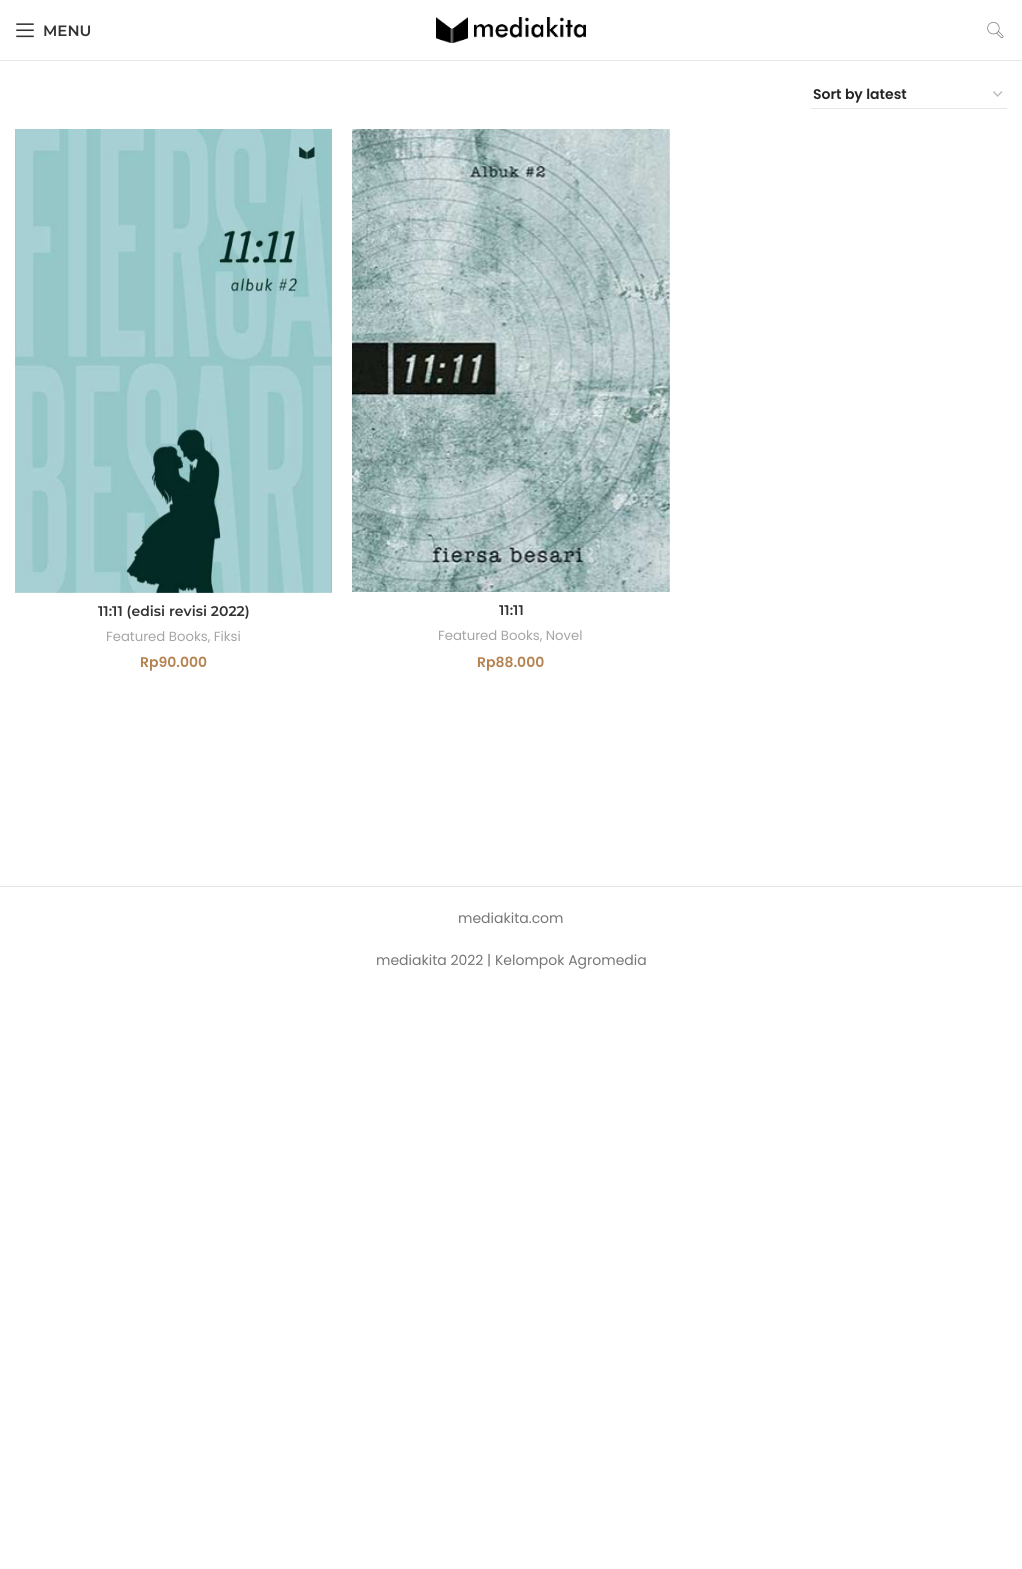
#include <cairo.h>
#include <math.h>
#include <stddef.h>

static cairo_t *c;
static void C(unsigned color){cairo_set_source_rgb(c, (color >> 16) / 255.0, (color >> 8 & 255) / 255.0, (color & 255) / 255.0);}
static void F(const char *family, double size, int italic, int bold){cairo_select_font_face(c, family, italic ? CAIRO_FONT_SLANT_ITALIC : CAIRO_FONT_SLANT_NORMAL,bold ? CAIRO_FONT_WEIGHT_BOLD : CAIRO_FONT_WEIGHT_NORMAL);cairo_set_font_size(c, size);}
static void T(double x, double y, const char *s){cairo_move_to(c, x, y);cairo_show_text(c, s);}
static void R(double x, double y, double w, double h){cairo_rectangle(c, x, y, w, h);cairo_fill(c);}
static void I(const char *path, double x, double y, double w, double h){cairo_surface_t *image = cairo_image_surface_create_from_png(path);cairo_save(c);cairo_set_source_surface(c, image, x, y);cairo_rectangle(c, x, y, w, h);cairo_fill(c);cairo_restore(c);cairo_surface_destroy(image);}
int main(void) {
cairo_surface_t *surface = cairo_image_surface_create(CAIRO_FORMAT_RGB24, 1022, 1569);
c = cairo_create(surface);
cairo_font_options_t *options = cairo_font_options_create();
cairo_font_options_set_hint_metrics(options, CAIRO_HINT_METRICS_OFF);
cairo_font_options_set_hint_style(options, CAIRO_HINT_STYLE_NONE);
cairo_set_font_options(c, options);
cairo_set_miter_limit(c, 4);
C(0xffffff);
cairo_paint(c);
C(0xe6e6e6);
R(0,60,1022,1);
I("1.png",16,23,18,15);
F("Montserrat Thin",15,0,0);
C(0x333333);
T(43,36,"MENU");
I("2.png",436,17,150,26);
I("3.png",987,22,17,17);
cairo_new_path(c);
cairo_move_to(c,993.5,91.5);
cairo_line_to(c,997.5,96);
cairo_line_to(c,1002,91.5);
C(0xbbbbbb);
cairo_set_line_width(c,1.4);
cairo_stroke(c);
C(0xe6e6e6);
R(811,108,196,1);
F("Poppins SemiBold",14,0,0);
C(0x242424);
T(813,99,"Sort by latest");
I("4.png",15,129,317,464);
F("Montserrat Thin",14,0,0);
C(0x333333);
T(98,616,"11:11 (edisi revisi 2022)");
F("Poppins",13.25,0,0);
C(0xa5a5a5);
T(106,641,"Featured Books, Fiksi");
F("Poppins SemiBold",14,0,0);
C(0xb58352);
T(140,667,"Rp90.000");
I("5.png",352,129,318,463);
F("Montserrat Thin",14,0,0);
C(0x333333);
T(499,615,"11:11");
F("Poppins",13.25,0,0);
C(0xa5a5a5);
T(438,640,"Featured Books, Novel");
F("Poppins SemiBold",14,0,0);
C(0xb58352);
T(477,667,"Rp88.000");
C(0xe4e4e4);
R(0,886,1022,1);
F("Poppins",14,0,0);
C(0x767676);
T(458,923,"mediakita.com");
T(376,965,"mediakita 2022 | Kelompok Agromedia");
cairo_surface_write_to_png(surface, "o.png");
cairo_font_options_destroy(options);
cairo_destroy(c);
cairo_surface_destroy(surface);
return 0;
}
